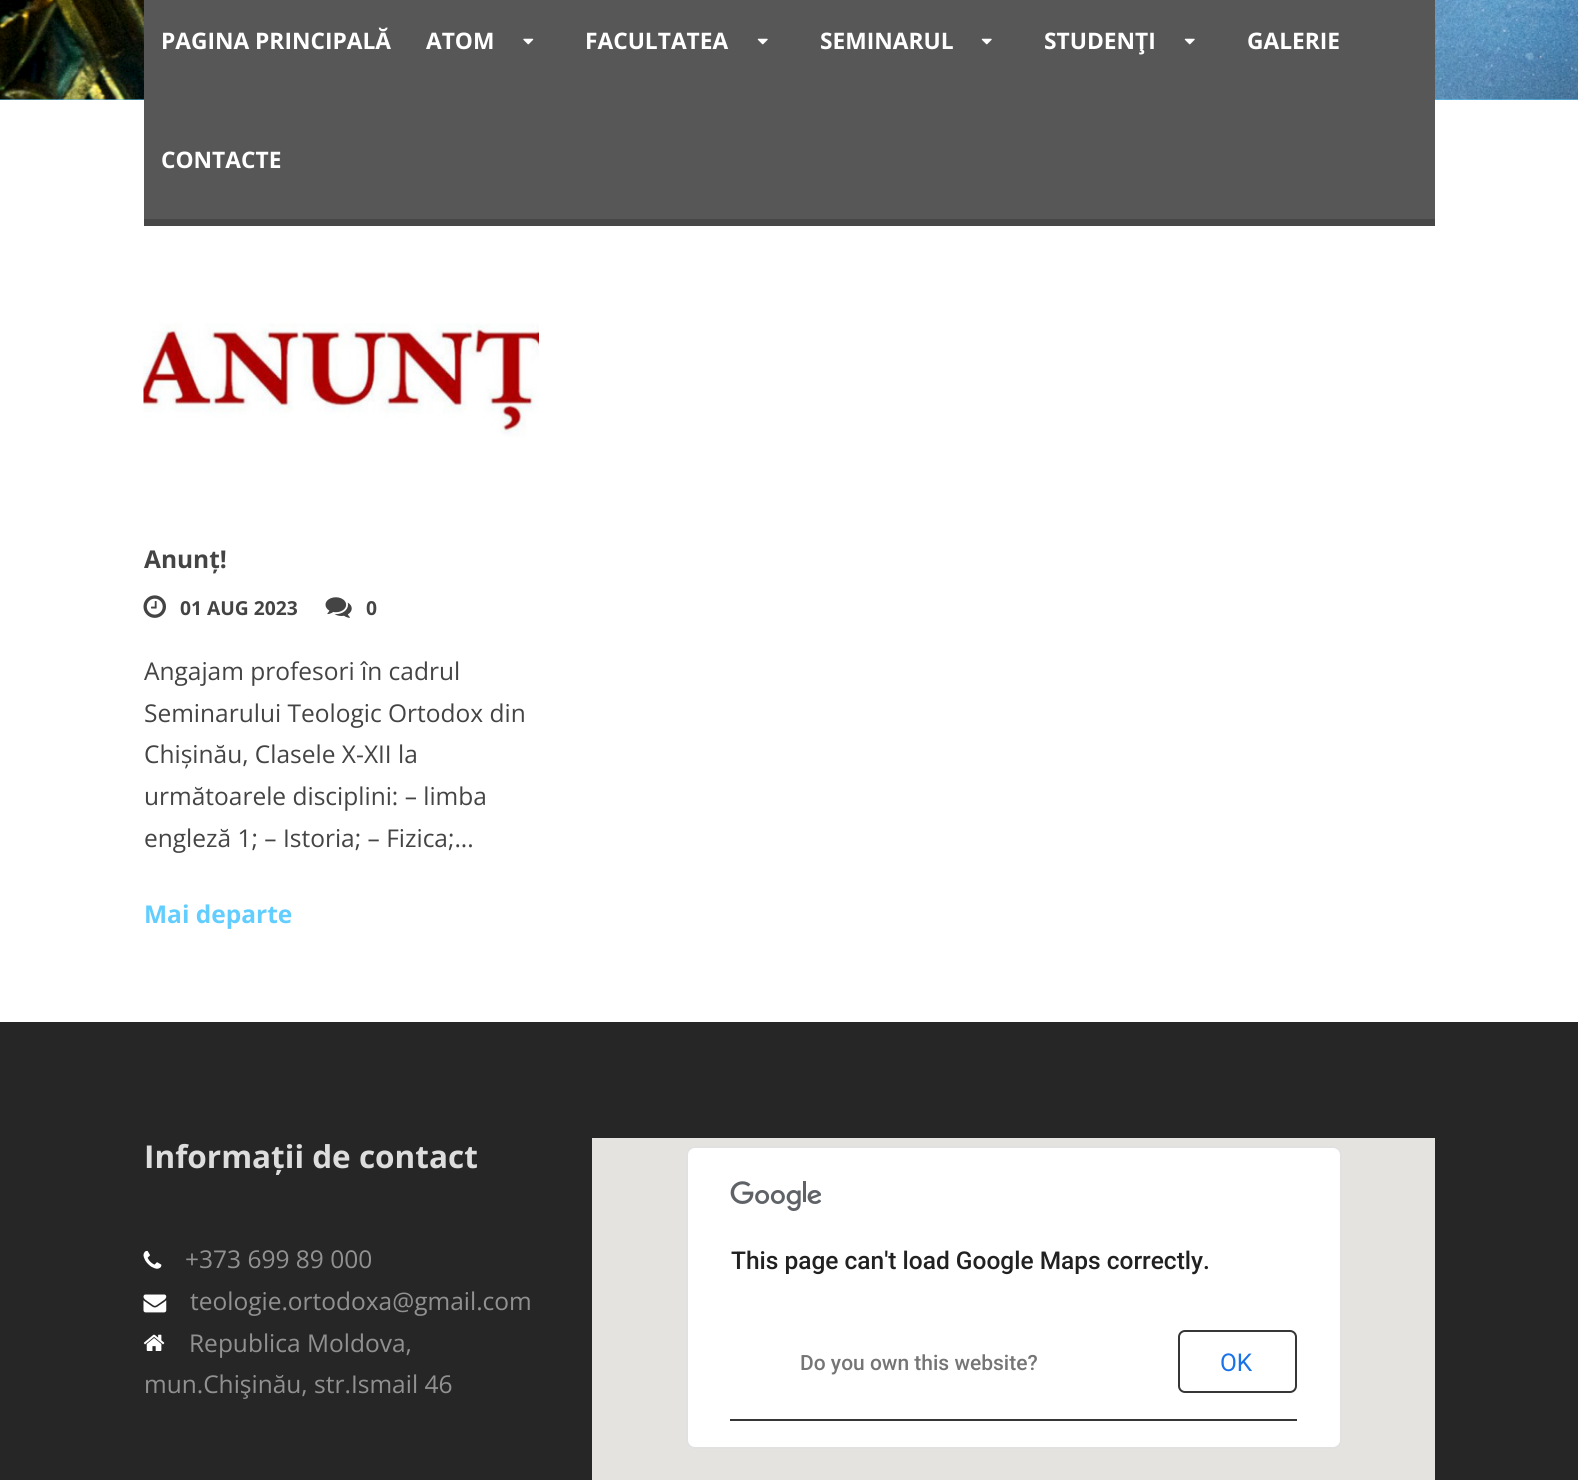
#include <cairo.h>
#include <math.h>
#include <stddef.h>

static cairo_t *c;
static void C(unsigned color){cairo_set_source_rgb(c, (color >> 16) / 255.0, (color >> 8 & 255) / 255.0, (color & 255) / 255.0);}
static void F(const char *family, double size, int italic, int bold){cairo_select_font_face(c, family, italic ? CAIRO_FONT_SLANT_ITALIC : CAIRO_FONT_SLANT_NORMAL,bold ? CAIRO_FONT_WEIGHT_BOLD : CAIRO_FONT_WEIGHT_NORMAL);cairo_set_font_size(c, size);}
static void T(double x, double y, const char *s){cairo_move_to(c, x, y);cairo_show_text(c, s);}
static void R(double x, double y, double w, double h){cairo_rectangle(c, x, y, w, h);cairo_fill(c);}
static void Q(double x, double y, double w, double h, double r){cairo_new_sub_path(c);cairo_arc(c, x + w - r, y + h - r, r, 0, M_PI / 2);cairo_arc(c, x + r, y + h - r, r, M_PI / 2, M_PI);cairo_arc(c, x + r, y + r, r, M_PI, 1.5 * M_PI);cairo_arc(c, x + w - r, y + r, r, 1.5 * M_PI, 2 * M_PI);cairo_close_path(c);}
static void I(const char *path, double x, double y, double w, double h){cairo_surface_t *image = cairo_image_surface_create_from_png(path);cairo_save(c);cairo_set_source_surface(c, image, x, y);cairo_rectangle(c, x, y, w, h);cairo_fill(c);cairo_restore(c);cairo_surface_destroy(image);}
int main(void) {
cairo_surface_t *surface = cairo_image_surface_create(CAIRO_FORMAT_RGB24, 1578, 1480);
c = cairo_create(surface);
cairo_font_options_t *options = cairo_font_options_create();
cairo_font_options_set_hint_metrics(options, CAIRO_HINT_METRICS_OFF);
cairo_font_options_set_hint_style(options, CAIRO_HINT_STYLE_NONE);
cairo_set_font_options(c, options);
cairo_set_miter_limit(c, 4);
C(0xffffff);
cairo_paint(c);
C(0x62cdff);
R(0,99,1578,1);
I("1.png",0,0,1578,100);
C(0x575757);
R(144,0,1291,219);
C(0x474747);
R(144,219,1291,7);
F("Open Sans",22.75,0,1);
C(0xffffff);
T(161,49,"PAGINA PRINCIPALĂ");
T(426,49,"ATOM");
I("2.png",523,38,11,7);
T(585,49,"FACULTATEA");
I("3.png",757,38,11,7);
T(820,49,"SEMINARUL");
I("3.png",981,38,11,7);
T(1044,49,"STUDENŢI");
I("3.png",1184,38,11,7);
T(1247,49,"GALERIE");
T(161,168,"CONTACTE");
I("4.png",143,323,396,114);
F("Open Sans",24.5,0,1);
C(0x444444);
T(144,568,"Anunț!");
I("5.png",143,595,23,23);
F("Open Sans",19.25,0,1);
T(180,615,"01 AUG 2023");
I("6.png",325,597,27,21);
T(366,615,"0");
F("Open Sans",24.5,0,0);
T(144,680,"Angajam profesori în cadrul");
T(144,722,"Seminarului Teologic Ortodox din");
T(144,763,"Chișinău, Clasele X-XII la");
T(144,805,"următoarele disciplini: – limba");
T(144,847,"engleză 1; – Istoria; – Fizica;...");
F("Open Sans",24.5,0,1);
C(0x62cdff);
T(144,923,"Mai departe");
C(0x262626);
R(0,1022,1578,458);
F("Open Sans",31.5,0,1);
C(0xdddddd);
T(144,1168,"Informații de contact");
I("7.png",143,1250,19,19);
F("Open Sans",24.5,0,0);
C(0x919191);
T(185,1268,"+373 699 89 000");
I("8.png",143,1294,24,19);
T(190,1310,"teologie.ortodoxa@gmail.com");
I("9.png",143,1334,22,17);
T(189,1352,"Republica Moldova,");
T(144,1393,"mun.Chişinău, str.Ismail 46");
C(0xe5e3df);
R(592,1138,843,342);
C(0xffffff);
Q(686,1146,656,303,9);
cairo_fill(c);
Q(687,1147,654,301,8);
cairo_set_source_rgba(c,0,0,0,0.12);
cairo_stroke(c);
I("10.png",730,1181,91,30);
F("Roboto Medium",24.5,0,0);
C(0x212121);
T(731,1269,"This page can't load Google Maps correctly.");
F("Roboto Medium",21,0,0);
C(0x757575);
T(800,1370,"Do you own this website?");
C(0x363636);
R(730,1419,567,2);
Q(1179,1331,117,61,6);
cairo_stroke(c);
F("Roboto",24.5,0,0);
C(0x1a73e8);
T(1220,1371,"OK");
cairo_surface_write_to_png(surface, "o.png");
cairo_font_options_destroy(options);
cairo_destroy(c);
cairo_surface_destroy(surface);
return 0;
}
